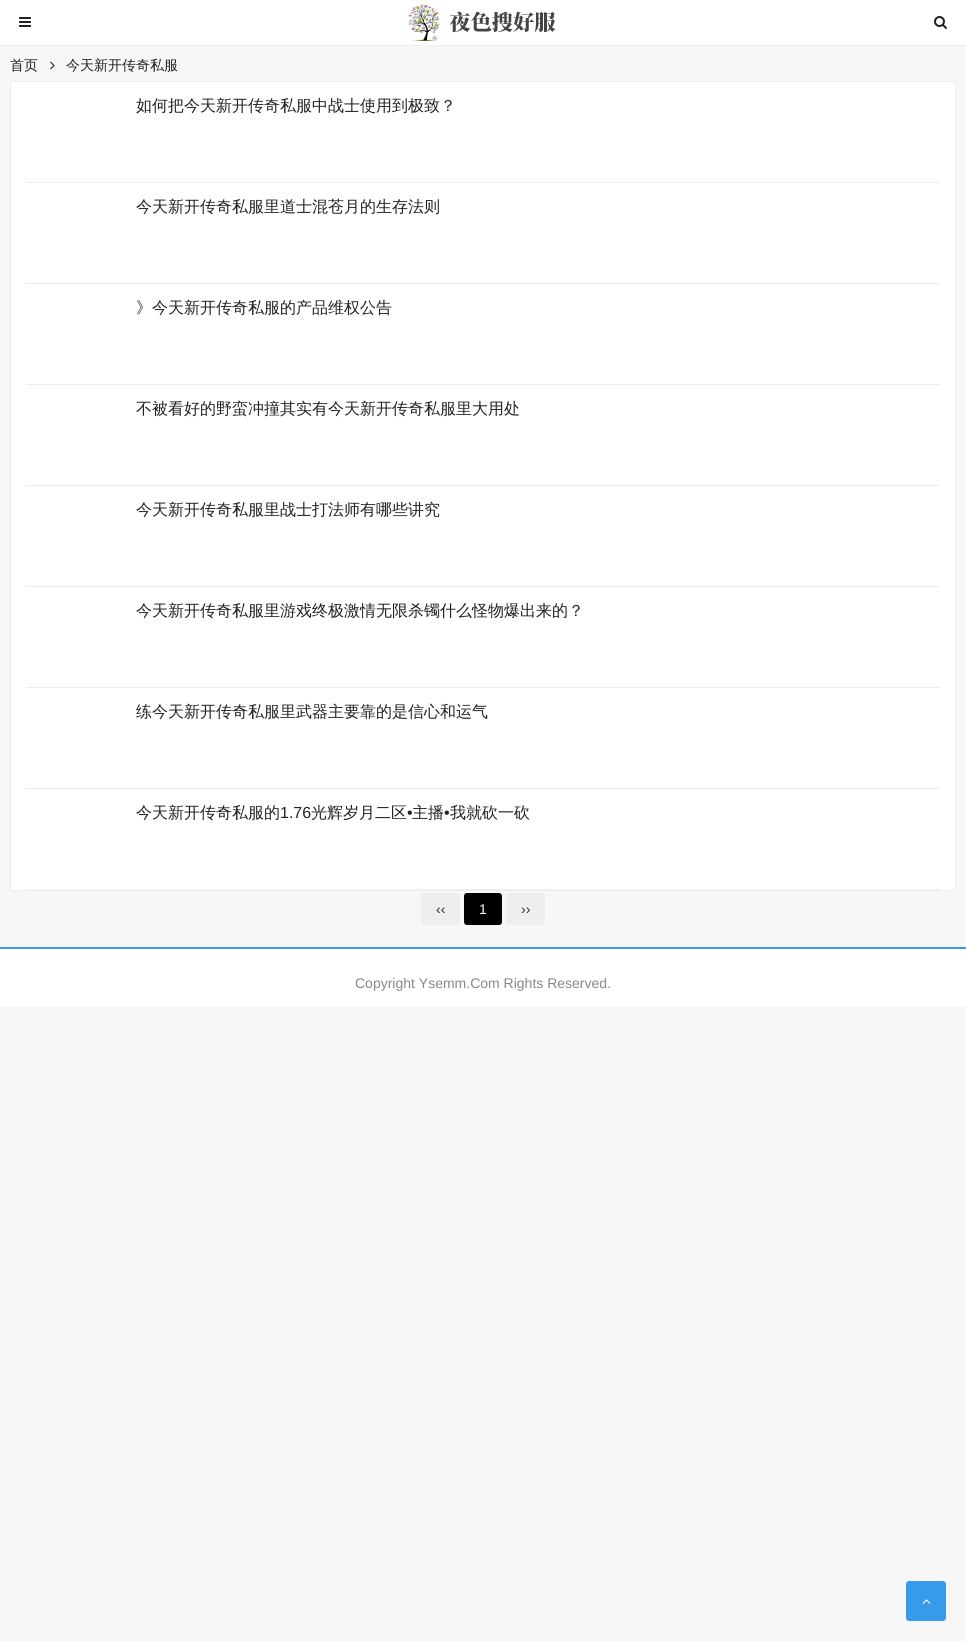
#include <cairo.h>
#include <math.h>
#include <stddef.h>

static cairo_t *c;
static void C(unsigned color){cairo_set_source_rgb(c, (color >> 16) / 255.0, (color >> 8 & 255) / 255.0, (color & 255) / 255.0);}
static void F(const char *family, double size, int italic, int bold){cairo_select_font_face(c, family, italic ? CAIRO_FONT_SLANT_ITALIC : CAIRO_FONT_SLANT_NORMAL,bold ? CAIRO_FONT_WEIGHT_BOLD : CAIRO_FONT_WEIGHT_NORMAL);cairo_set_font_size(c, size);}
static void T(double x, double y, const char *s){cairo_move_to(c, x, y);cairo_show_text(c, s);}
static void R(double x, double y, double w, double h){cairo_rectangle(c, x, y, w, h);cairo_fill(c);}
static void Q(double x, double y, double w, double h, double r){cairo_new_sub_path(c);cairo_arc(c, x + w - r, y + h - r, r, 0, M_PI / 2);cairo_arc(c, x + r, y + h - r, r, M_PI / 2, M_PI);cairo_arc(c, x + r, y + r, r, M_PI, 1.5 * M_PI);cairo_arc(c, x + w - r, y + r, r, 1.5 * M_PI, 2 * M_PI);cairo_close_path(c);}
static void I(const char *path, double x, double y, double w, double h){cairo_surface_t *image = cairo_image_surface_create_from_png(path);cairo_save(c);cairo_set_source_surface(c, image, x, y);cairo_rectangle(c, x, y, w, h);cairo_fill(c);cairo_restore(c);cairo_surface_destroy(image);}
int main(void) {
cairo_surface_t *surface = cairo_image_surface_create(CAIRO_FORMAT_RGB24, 966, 1641);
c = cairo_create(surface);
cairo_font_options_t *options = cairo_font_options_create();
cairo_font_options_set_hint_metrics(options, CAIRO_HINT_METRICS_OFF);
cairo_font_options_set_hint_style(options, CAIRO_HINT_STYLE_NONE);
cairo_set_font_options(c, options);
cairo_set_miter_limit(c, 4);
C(0xf7f7f7);
cairo_paint(c);
C(0xffffff);
R(0,0,966,45);
C(0xeeeeee);
R(0,45,966,1);
I("1.png",19,17,12,10);
I("2.png",408,4,148,37);
I("3.png",934,16,13,13);
F("WenQuanYi Zen Hei Medium",14,0,0);
C(0x222222);
T(10,70,"首页");
I("4.png",50,61,5,9);
T(66,70,"今天新开传奇私服");
C(0xffffff);
cairo_rectangle(c,10.5,81.5,945,809);
cairo_fill_preserve(c);
C(0xeeeeee);
cairo_set_line_width(c,1);
cairo_stroke(c);
R(26,182,914,1);
F("WenQuanYi Zen Hei Medium",16,0,0);
C(0x222222);
T(136,111,"如何把今天新开传奇私服中战士使用到极致？");
C(0xeeeeee);
R(26,283,914,1);
C(0x222222);
T(136,212,"今天新开传奇私服里道士混苍月的生存法则");
C(0xeeeeee);
R(26,384,914,1);
C(0x222222);
T(136,313,"》今天新开传奇私服的产品维权公告");
C(0xeeeeee);
R(26,485,914,1);
C(0x222222);
T(136,414,"不被看好的野蛮冲撞其实有今天新开传奇私服里大用处");
C(0xeeeeee);
R(26,586,914,1);
C(0x222222);
T(136,515,"今天新开传奇私服里战士打法师有哪些讲究");
C(0xeeeeee);
R(26,687,914,1);
C(0x222222);
T(136,616,"今天新开传奇私服里游戏终极激情无限杀镯什么怪物爆出来的？");
C(0xeeeeee);
R(26,788,914,1);
C(0x222222);
T(136,717,"练今天新开传奇私服里武器主要靠的是信心和运气");
C(0xeeeeee);
R(26,889,914,1);
C(0x222222);
T(136,818,"今天新开传奇私服的");
F("Liberation Sans",16,0,0);
T(280,818,"1.76");
F("WenQuanYi Zen Hei Medium",16,0,0);
T(311,818,"光辉岁月二区");
F("Liberation Sans",16,0,0);
T(407,818,"•");
F("WenQuanYi Zen Hei Medium",16,0,0);
T(412,818,"主播");
F("Liberation Sans",16,0,0);
T(444,818,"•");
F("WenQuanYi Zen Hei Medium",16,0,0);
T(450,818,"我就砍一砍");
C(0xeeeeee);
Q(421,893,39,32,3);
cairo_fill(c);
F("Liberation Sans",14,0,0);
C(0x333333);
T(436,914,"‹‹");
C(0x000000);
Q(464,893,38,32,3);
cairo_fill(c);
C(0xffffff);
T(479,914,"1");
C(0xeeeeee);
Q(506,893,39,32,3);
cairo_fill(c);
C(0x333333);
T(521,914,"››");
C(0xffffff);
R(0,949,966,58);
C(0x379be9);
R(0,947,966,2);
C(0x888888);
T(355,988,"Copyright Ysemm.Com Rights Reserved.");
C(0x379be9);
Q(906,1581,40,40,3);
cairo_fill(c);
I("5.png",922,1599,9,5);
cairo_surface_write_to_png(surface, "o.png");
cairo_font_options_destroy(options);
cairo_destroy(c);
cairo_surface_destroy(surface);
return 0;
}
